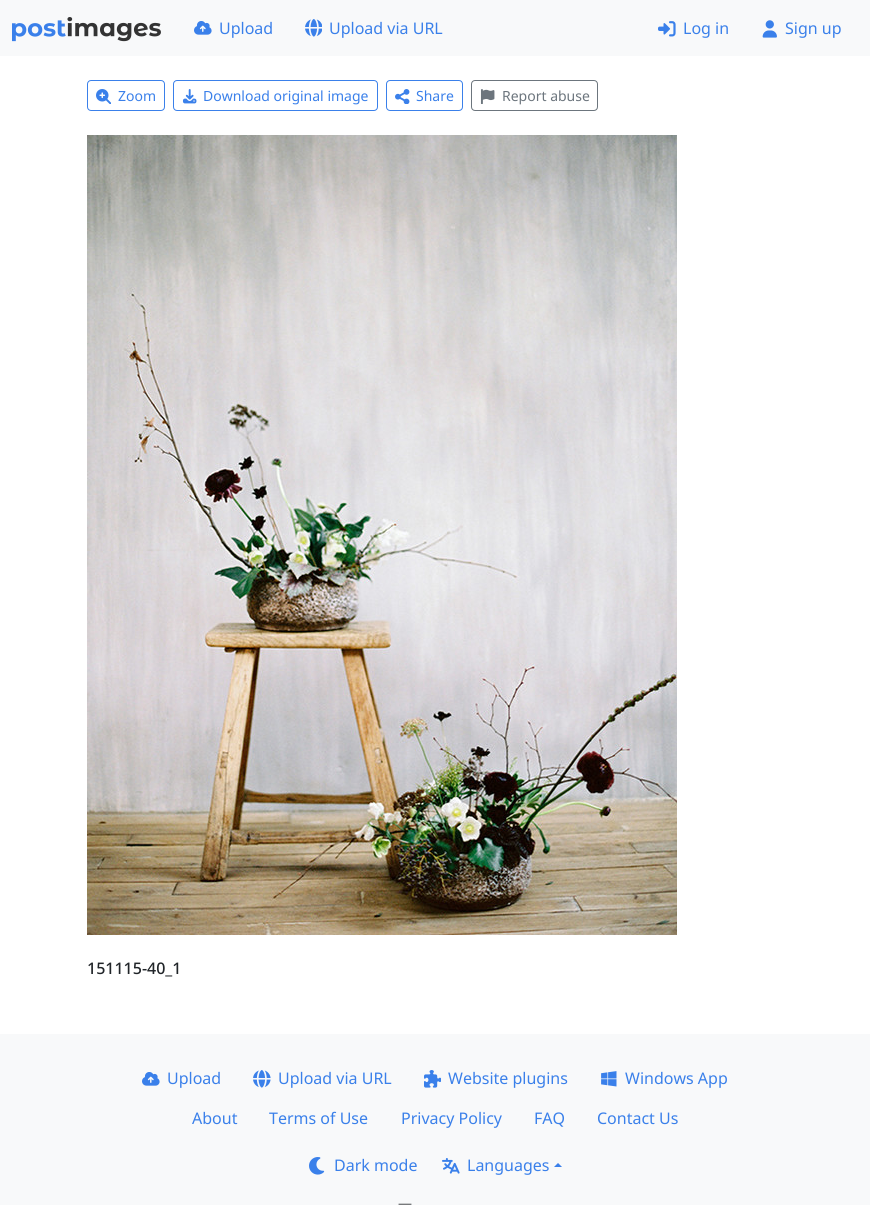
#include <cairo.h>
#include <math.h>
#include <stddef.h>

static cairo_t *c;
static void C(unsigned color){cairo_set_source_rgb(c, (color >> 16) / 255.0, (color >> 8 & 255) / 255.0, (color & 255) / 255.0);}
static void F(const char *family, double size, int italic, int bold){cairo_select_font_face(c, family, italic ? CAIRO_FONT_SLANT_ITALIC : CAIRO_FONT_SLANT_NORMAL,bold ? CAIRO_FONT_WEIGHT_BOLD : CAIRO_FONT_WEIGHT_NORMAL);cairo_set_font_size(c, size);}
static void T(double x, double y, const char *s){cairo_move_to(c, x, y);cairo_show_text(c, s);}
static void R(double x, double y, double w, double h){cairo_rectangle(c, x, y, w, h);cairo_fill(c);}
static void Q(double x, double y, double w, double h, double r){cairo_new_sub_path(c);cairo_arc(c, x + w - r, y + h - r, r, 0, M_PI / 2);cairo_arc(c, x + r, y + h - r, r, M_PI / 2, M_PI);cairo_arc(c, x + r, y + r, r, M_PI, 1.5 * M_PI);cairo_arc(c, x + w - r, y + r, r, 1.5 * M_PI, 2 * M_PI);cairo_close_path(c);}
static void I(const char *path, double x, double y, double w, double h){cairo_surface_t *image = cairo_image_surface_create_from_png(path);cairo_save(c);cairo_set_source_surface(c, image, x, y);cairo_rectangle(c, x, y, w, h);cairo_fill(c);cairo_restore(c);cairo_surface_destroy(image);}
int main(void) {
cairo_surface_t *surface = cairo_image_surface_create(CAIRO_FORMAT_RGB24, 870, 1205);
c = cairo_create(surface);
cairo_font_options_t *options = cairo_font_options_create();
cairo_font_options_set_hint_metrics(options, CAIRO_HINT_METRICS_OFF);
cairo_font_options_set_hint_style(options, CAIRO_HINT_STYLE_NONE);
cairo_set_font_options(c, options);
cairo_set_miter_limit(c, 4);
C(0xffffff);
cairo_paint(c);
C(0xf8f9fa);
R(0,0,870,56);
I("1.png",12,17,149,25);
I("2.png",194,21,18,14);
F("Noto Sans",16,0,0);
C(0x3a80ea);
T(219,34,"Upload");
I("3.png",305,19,17,18);
T(329,34,"Upload via URL");
I("4.png",658,21,18,16);
T(683,34,"Log in");
I("5.png",762,20,15,18);
T(785,34,"Sign up");
Q(87.5,80.5,77,30,3.5);
cairo_set_line_width(c,1);
cairo_stroke(c);
I("6.png",96,89,15,15);
F("Noto Sans",14,0,0);
T(118,101,"Zoom");
Q(173.5,80.5,204,30,3.5);
cairo_stroke(c);
I("7.png",182,89,15,15);
T(203,101,"Download original image");
Q(386.5,80.5,76,30,3.5);
cairo_stroke(c);
I("8.png",395,89,15,15);
T(416,101,"Share");
Q(471.5,80.5,126,30,3.5);
C(0x6c757d);
cairo_stroke(c);
I("9.png",480,89,15,15);
T(502,101,"Report abuse");
I("10.png",87,135,590,800);
F("Noto Sans Medium",16,0,0);
C(0x212529);
T(87,974,"151115-40_1");
C(0xf8f9fa);
R(0,1034,870,171);
I("2.png",142,1072,18,14);
F("Noto Sans",16,0,0);
C(0x3a80ea);
T(167,1084,"Upload");
I("11.png",253,1070,18,18);
T(278,1084,"Upload via URL");
I("12.png",424,1070,17,18);
T(448,1084,"Website plugins");
I("13.png",601,1071,16,16);
T(625,1084,"Windows App");
T(192,1124,"About");
T(269,1124,"Terms of Use");
T(401,1124,"Privacy Policy");
T(534,1124,"FAQ");
T(597,1124,"Contact Us");
I("14.png",309,1157,16,18);
T(334,1171,"Dark mode");
I("15.png",442,1158,18,16);
T(467,1171,"Languages");
cairo_new_path(c);
cairo_move_to(c,562,1167);
cairo_line_to(c,554,1167);
cairo_line_to(c,558,1163);
cairo_close_path(c);
cairo_fill(c);
F("Noto Sans",14,0,0);
C(0x575a5d);
T(398,1208,"—");
cairo_surface_write_to_png(surface, "o.png");
cairo_font_options_destroy(options);
cairo_destroy(c);
cairo_surface_destroy(surface);
return 0;
}
